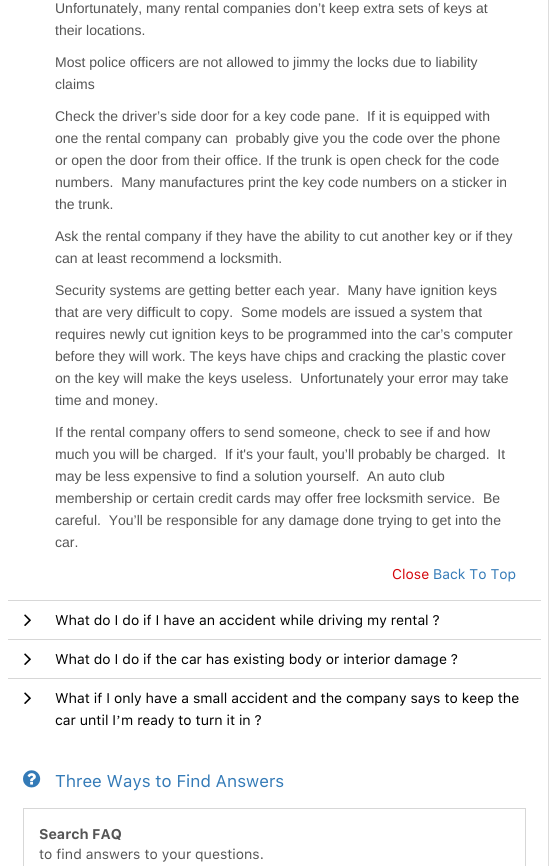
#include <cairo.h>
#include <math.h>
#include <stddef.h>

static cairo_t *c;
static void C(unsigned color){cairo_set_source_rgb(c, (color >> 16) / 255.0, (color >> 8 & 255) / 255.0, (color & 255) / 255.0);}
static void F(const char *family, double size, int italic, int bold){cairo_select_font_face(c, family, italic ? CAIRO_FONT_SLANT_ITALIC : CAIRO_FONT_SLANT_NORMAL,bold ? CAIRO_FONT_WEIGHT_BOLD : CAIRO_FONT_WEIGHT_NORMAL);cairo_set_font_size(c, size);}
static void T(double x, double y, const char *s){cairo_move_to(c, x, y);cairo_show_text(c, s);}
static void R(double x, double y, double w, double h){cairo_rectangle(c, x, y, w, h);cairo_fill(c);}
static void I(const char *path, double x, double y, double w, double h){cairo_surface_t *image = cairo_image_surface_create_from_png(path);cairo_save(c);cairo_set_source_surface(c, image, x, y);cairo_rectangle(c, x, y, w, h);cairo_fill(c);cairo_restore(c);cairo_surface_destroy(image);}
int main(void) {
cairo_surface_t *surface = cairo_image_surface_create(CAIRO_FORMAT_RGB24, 549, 866);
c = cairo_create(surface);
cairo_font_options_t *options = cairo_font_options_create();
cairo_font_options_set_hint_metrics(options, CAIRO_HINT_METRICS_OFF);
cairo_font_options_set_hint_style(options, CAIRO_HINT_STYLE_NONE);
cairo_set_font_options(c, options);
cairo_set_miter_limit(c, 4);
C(0xffffff);
cairo_paint(c);
F("Liberation Sans",14,0,0);
C(0x555555);
T(55,13,"Unfortunately, many rental companies don’t keep extra sets of keys at");
T(55,35,"their locations.");
T(55,67,"Most police officers are not allowed to jimmy the locks due to liability");
T(55,89,"claims");
T(55,121,"Check the driver’s side door for a key code pane.  If it is equipped with");
T(55,143,"one the rental company can  probably give you the code over the phone");
T(55,165,"or open the door from their office. If the trunk is open check for the code");
T(55,187,"numbers.  Many manufactures print the key code numbers on a sticker in");
T(55,209,"the trunk.");
T(55,241,"Ask the rental company if they have the ability to cut another key or if they");
T(55,263,"can at least recommend a locksmith.");
T(55,295,"Security systems are getting better each year.  Many have ignition keys");
T(55,317,"that are very difficult to copy.  Some models are issued a system that");
T(55,339,"requires newly cut ignition keys to be programmed into the car’s computer");
T(55,361,"before they will work. The keys have chips and cracking the plastic cover");
T(55,383,"on the key will make the keys useless.  Unfortunately your error may take");
T(55,405,"time and money.");
T(55,437,"If the rental company offers to send someone, check to see if and how");
T(55,459,"much you will be charged.  If it's your fault, you’ll probably be charged.  It");
T(55,481,"may be less expensive to find a solution yourself.  An auto club");
T(55,503,"membership or certain credit cards may offer free locksmith service.  Be");
T(55,525,"careful.  You’ll be responsible for any damage done trying to get into the");
T(55,547,"car.");
F("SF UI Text",14,0,0);
C(0xd4060c);
T(392,579,"Close");
C(0x337ab7);
T(433,579,"Back To Top");
C(0xd7d7d7);
R(8,600,533,1);
I("1.png",24,614,7,12);
C(0x000000);
T(55,625,"What do I do if I have an accident while driving my rental ?");
C(0xd7d7d7);
R(8,639,533,1);
I("1.png",24,653,7,12);
C(0x000000);
T(55,664,"What do I do if the car has existing body or interior damage ?");
C(0xd7d7d7);
R(8,678,533,1);
I("1.png",24,692,7,12);
C(0x000000);
T(55,703,"What if I only have a small accident and the company says to keep the");
T(55,725,"car until I");
F("Liberation Serif",14,0,0);
T(116,725,"’");
F("SF UI Text",14,0,0);
T(121,725,"m ready to turn it in ?");
I("2.png",23,770,18,18);
F("SF UI Text",17,0,0);
C(0x337ab7);
T(55,787,"Three Ways to Find Answers");
cairo_rectangle(c,23.5,808.5,502,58);
C(0xd7d7d7);
cairo_set_line_width(c,1);
cairo_stroke(c);
F("SF UI Text",14,0,1);
C(0x555555);
T(39,839,"Search FAQ");
F("SF UI Text",14,0,0);
T(39,859,"to find answers to your questions.");
C(0xdddddd);
R(548,0,1,866);
cairo_surface_write_to_png(surface, "o.png");
cairo_font_options_destroy(options);
cairo_destroy(c);
cairo_surface_destroy(surface);
return 0;
}
